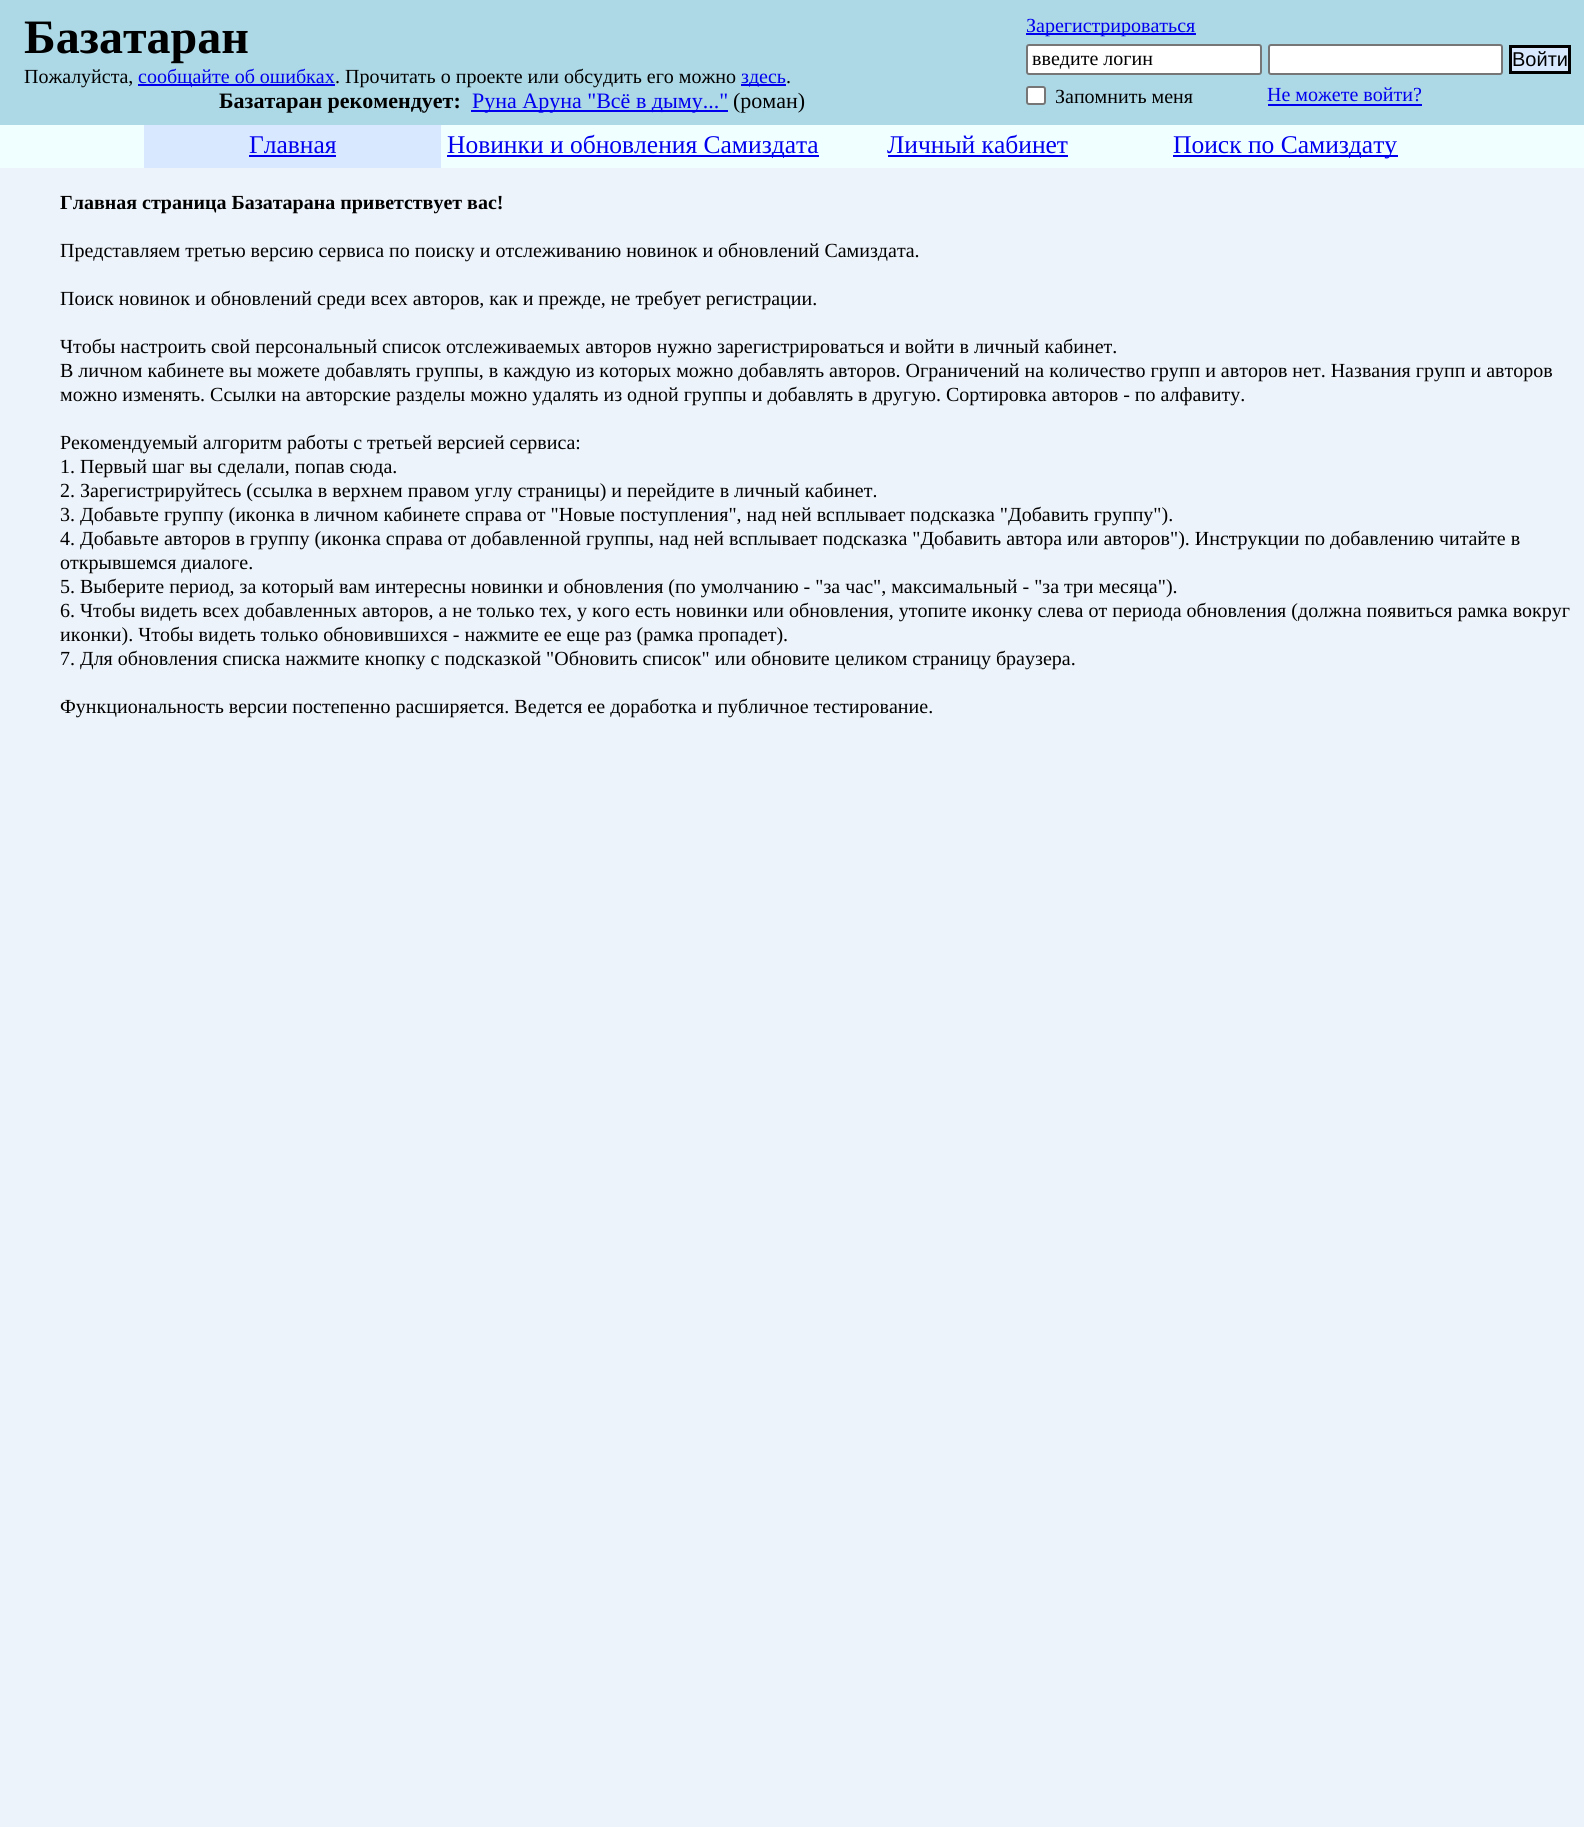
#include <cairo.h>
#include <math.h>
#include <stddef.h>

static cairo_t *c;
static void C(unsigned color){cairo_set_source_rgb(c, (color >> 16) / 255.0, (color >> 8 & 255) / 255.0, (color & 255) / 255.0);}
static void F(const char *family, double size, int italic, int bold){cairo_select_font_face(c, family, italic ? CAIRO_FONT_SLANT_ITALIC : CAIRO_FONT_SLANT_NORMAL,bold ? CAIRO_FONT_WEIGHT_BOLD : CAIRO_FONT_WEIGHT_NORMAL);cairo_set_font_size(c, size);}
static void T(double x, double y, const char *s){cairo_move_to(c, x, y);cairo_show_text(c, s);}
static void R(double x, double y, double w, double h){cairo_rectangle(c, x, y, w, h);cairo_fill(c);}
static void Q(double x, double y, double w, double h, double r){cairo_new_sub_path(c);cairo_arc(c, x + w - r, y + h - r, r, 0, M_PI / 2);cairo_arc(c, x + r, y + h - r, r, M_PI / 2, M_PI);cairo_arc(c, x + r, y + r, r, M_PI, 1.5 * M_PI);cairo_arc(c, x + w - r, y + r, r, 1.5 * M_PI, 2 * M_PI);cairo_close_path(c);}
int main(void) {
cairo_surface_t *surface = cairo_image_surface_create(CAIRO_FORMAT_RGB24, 1584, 1827);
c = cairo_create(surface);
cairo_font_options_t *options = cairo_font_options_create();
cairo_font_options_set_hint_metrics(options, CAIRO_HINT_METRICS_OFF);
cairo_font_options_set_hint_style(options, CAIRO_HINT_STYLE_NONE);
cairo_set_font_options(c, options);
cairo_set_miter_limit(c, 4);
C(0xedf3fa);
cairo_paint(c);
C(0xadd8e6);
R(0,0,1584,125);
F("Liberation Serif",48,0,1);
C(0x000000);
T(24,53,"Базатаран");
F("Liberation Serif",20,0,0);
T(24,83,"Пожалуйста,");
C(0x0000ee);
R(138,84,197,2);
T(138,83,"сообщайте об ошибках");
C(0x000000);
T(335,83,". Прочитать о проекте или обсудить его можно");
C(0x0000ee);
R(741,84,45,2);
T(741,83,"здесь");
C(0x000000);
T(786,83,".");
F("Liberation Serif",22,0,1);
T(219,108,"Базатаран рекомендует:");
C(0x0000ee);
R(471,110,257,2);
F("Liberation Serif",22,0,0);
T(472,108,"Руна Аруна \"Всё в дыму...\"");
C(0x000000);
T(733,108,"(роман)");
C(0x0000ee);
R(1026,33,170,2);
F("Liberation Serif",20,0,0);
T(1026,32,"Зарегистрироваться");
C(0xffffff);
Q(1027,45,234,29,2);
cairo_fill_preserve(c);
C(0x767676);
cairo_stroke(c);
C(0x000000);
T(1032,65,"введите логин");
C(0xffffff);
Q(1269,45,233,29,2);
cairo_fill_preserve(c);
C(0x767676);
cairo_stroke(c);
C(0xd8e8ff);
cairo_rectangle(c,1510.5,46.5,59,26);
cairo_fill_preserve(c);
C(0x000000);
cairo_set_line_width(c,3);
cairo_stroke(c);
F("Liberation Sans",20,0,0);
T(1512,66,"Войти");
C(0xffffff);
Q(1027,87,18,17,2);
cairo_fill_preserve(c);
C(0x767676);
cairo_set_line_width(c,2);
cairo_stroke(c);
F("Liberation Serif",20,0,0);
C(0x000000);
T(1055,103,"Запомнить меня");
C(0x0000ee);
T(1267,101,"Не можете войти?");
R(1268,104,154,2);
C(0xf0ffff);
R(0,125,1584,43);
C(0xd8e8ff);
R(144,125,297,43);
F("Liberation Serif",25.5,0,0);
C(0x0000ee);
T(249,153,"Главная");
R(249,155,87,2);
R(447,155,372,2);
T(447,153,"Новинки и обновления Самиздата");
T(887,153,"Личный кабинет");
R(888,155,180,2);
R(1173,155,225,2);
T(1173,153,"Поиск по Самиздату");
F("Liberation Serif",20,0,1);
C(0x000000);
T(60,209,"Главная страница Базатарана приветствует вас!");
F("Liberation Serif",20,0,0);
T(60,257,"Представляем третью версию сервиса по поиску и отслеживанию новинок и обновлений Самиздата.");
T(60,305,"Поиск новинок и обновлений среди всех авторов, как и прежде, не требует регистрации.");
T(60,353,"Чтобы настроить свой персональный список отслеживаемых авторов нужно зарегистрироваться и войти в личный кабинет.");
T(60,377,"В личном кабинете вы можете добавлять группы, в каждую из которых можно добавлять авторов. Ограничений на количество групп и авторов нет. Названия групп и авторов");
T(60,401,"можно изменять. Ссылки на авторские разделы можно удалять из одной группы и добавлять в другую. Сортировка авторов - по алфавиту.");
T(60,449,"Рекомендуемый алгоритм работы с третьей версией сервиса:");
T(60,473,"1. Первый шаг вы сделали, попав сюда.");
T(60,497,"2. Зарегистрируйтесь (ссылка в верхнем правом углу страницы) и перейдите в личный кабинет.");
T(60,521,"3. Добавьте группу (иконка в личном кабинете справа от \"Новые поступления\", над ней всплывает подсказка \"Добавить группу\").");
T(60,545,"4. Добавьте авторов в группу (иконка справа от добавленной группы, над ней всплывает подсказка \"Добавить автора или авторов\"). Инструкции по добавлению читайте в");
T(60,569,"открывшемся диалоге.");
T(60,593,"5. Выберите период, за который вам интересны новинки и обновления (по умолчанию - \"за час\", максимальный - \"за три месяца\").");
T(60,617,"6. Чтобы видеть всех добавленных авторов, а не только тех, у кого есть новинки или обновления, утопите иконку слева от периода обновления (должна появиться рамка вокруг");
T(60,641,"иконки). Чтобы видеть только обновившихся - нажмите ее еще раз (рамка пропадет).");
T(60,665,"7. Для обновления списка нажмите кнопку с подсказкой \"Обновить список\" или обновите целиком страницу браузера.");
T(60,713,"Функциональность версии постепенно расширяется. Ведется ее доработка и публичное тестирование.");
cairo_surface_write_to_png(surface, "o.png");
cairo_font_options_destroy(options);
cairo_destroy(c);
cairo_surface_destroy(surface);
return 0;
}
